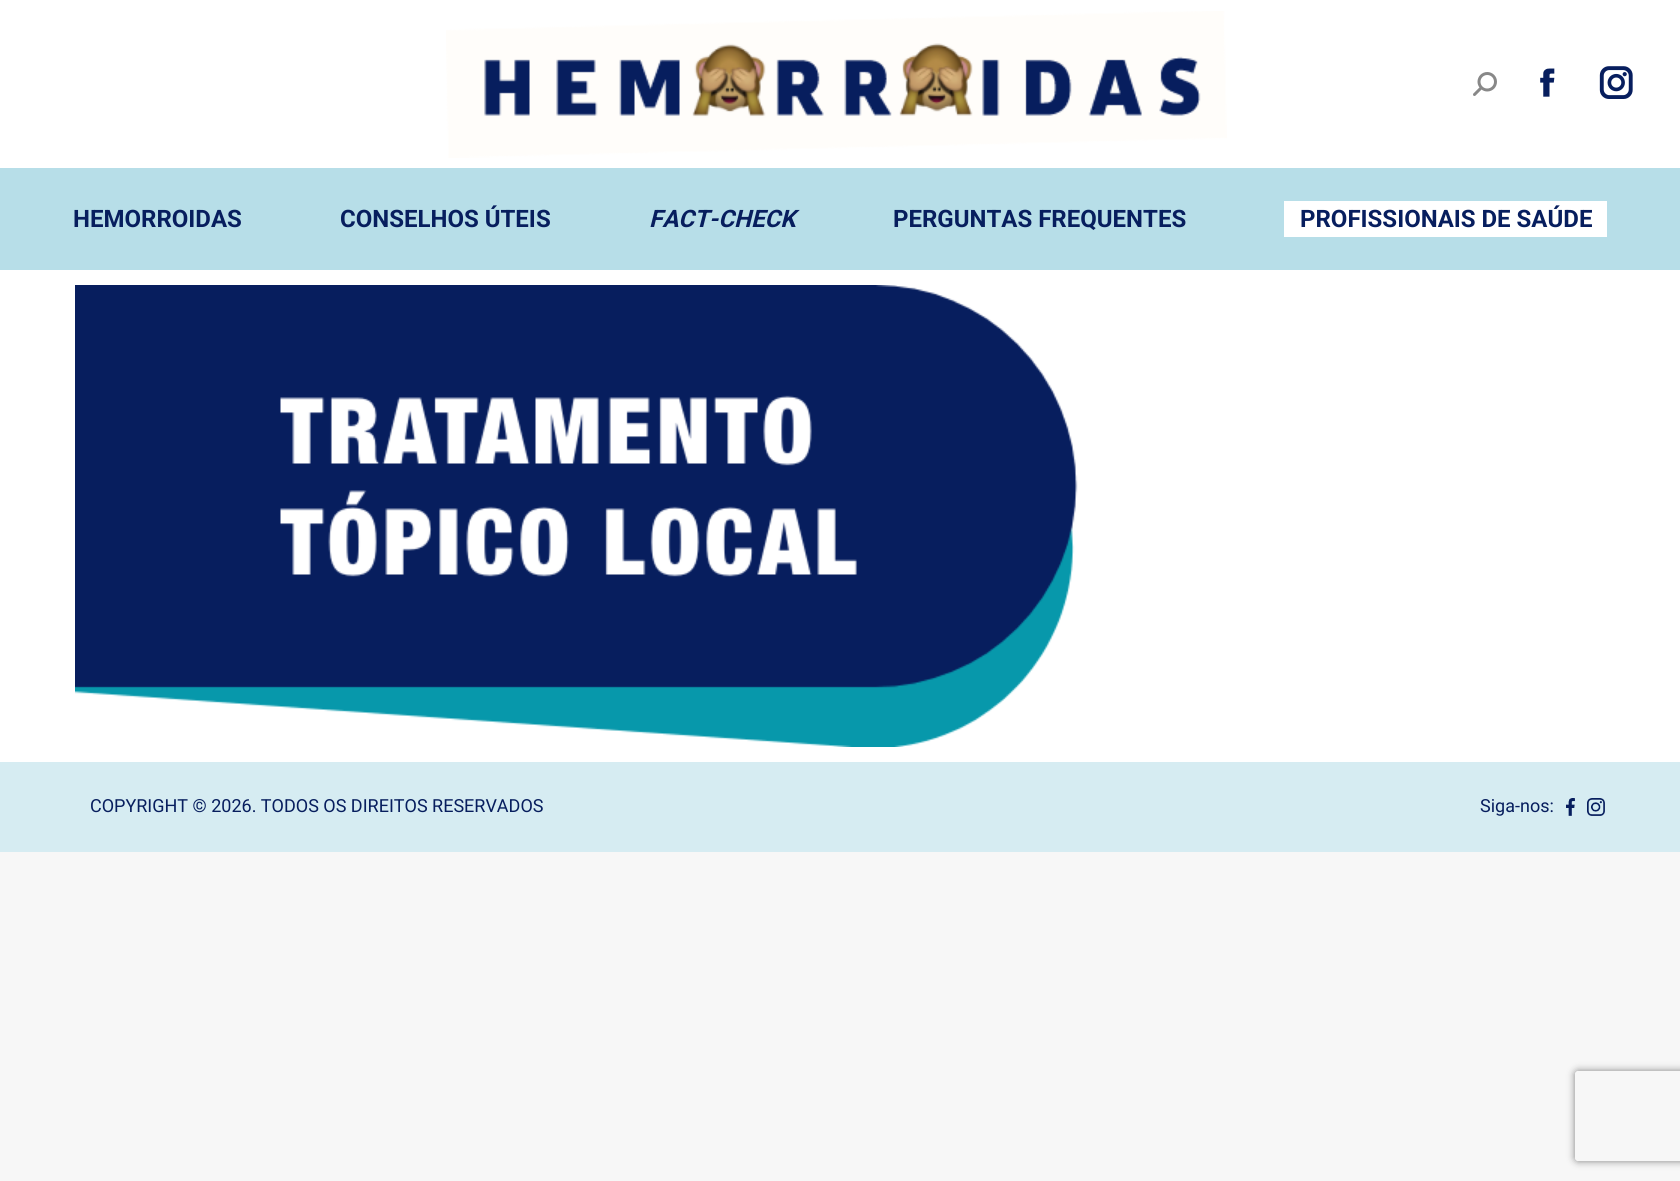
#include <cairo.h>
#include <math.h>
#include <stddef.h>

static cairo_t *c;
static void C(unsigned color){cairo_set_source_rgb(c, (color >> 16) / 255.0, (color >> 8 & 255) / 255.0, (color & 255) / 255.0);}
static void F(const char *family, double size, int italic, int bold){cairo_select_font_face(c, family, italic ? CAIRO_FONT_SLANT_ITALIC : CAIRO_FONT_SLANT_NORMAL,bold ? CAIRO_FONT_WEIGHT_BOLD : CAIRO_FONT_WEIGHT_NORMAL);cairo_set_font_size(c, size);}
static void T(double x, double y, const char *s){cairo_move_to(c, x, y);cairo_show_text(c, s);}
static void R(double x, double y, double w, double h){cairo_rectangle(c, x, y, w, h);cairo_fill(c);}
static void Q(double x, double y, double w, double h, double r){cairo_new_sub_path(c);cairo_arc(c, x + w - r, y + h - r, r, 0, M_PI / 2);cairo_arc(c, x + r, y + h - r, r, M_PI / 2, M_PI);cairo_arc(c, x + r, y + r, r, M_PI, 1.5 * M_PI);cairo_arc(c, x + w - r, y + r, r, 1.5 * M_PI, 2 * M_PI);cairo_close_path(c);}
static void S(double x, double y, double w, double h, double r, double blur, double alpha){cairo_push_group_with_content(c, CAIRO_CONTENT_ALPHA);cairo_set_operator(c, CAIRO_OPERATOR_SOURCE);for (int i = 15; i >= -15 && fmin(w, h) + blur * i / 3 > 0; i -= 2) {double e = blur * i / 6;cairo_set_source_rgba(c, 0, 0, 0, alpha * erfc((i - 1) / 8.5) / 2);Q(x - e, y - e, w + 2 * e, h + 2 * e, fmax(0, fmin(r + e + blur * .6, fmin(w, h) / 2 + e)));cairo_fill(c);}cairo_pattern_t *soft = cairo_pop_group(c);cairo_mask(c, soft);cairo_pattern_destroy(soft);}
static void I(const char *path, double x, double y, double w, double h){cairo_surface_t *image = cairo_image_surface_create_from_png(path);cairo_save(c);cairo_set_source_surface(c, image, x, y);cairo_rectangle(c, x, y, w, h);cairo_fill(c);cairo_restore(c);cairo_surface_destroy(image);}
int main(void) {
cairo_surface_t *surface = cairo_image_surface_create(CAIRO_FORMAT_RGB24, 1680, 1181);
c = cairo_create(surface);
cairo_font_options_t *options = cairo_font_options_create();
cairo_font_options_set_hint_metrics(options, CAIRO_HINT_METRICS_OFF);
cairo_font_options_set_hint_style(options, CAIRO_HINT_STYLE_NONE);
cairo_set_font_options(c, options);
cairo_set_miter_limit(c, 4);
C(0xf7f7f7);
cairo_paint(c);
C(0xffffff);
R(0,0,1680,762);
I("1.png",446,11,781,147);
I("2.png",1473,72,24,24);
I("3.png",1540,68,15,29);
I("4.png",1599,66,34,33);
C(0xb7dee8);
R(0,168,1680,102);
F("Roboto",24,0,1);
C(0x071e5e);
T(73,227,"HEMORROIDAS");
T(340,227,"CONSELHOS ÚTEIS");
F("Roboto",24,1,1);
T(649,227,"FACT-CHECK");
F("Roboto",24,0,1);
T(893,227,"PERGUNTAS FREQUENTES");
C(0xffffff);
R(1284,201,323,36);
C(0x071e5e);
T(1300,227,"PROFISSIONAIS DE SAÚDE");
I("5.png",75,285,1003,462);
C(0xd6ecf2);
R(0,762,1680,90);
F("Roboto",18,0,0);
C(0x071e5e);
T(90,812,"COPYRIGHT © 2026. TODOS OS DIREITOS RESERVADOS");
T(1480,812,"Siga-nos:");
I("6.png",1566,798,9,18);
I("7.png",1587,798,18,18);
cairo_save(c);
cairo_set_fill_rule(c,CAIRO_FILL_RULE_EVEN_ODD);
cairo_new_path(c);
cairo_move_to(c,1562,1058);
cairo_line_to(c,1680,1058);
cairo_line_to(c,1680,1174);
cairo_line_to(c,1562,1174);
cairo_close_path(c);
cairo_move_to(c,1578,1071);
cairo_line_to(c,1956,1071);
cairo_curve_to(c,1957.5,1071,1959,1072.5,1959,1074);
cairo_line_to(c,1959,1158);
cairo_curve_to(c,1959,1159.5,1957.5,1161,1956,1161);
cairo_line_to(c,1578,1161);
cairo_curve_to(c,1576.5,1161,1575,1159.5,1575,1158);
cairo_line_to(c,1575,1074);
cairo_curve_to(c,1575,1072.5,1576.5,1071,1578,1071);
cairo_close_path(c);
cairo_clip(c);
C(0x808080);
S(1575,1071,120,90,3,4,1);
cairo_restore(c);
cairo_surface_write_to_png(surface, "o.png");
cairo_font_options_destroy(options);
cairo_destroy(c);
cairo_surface_destroy(surface);
return 0;
}
